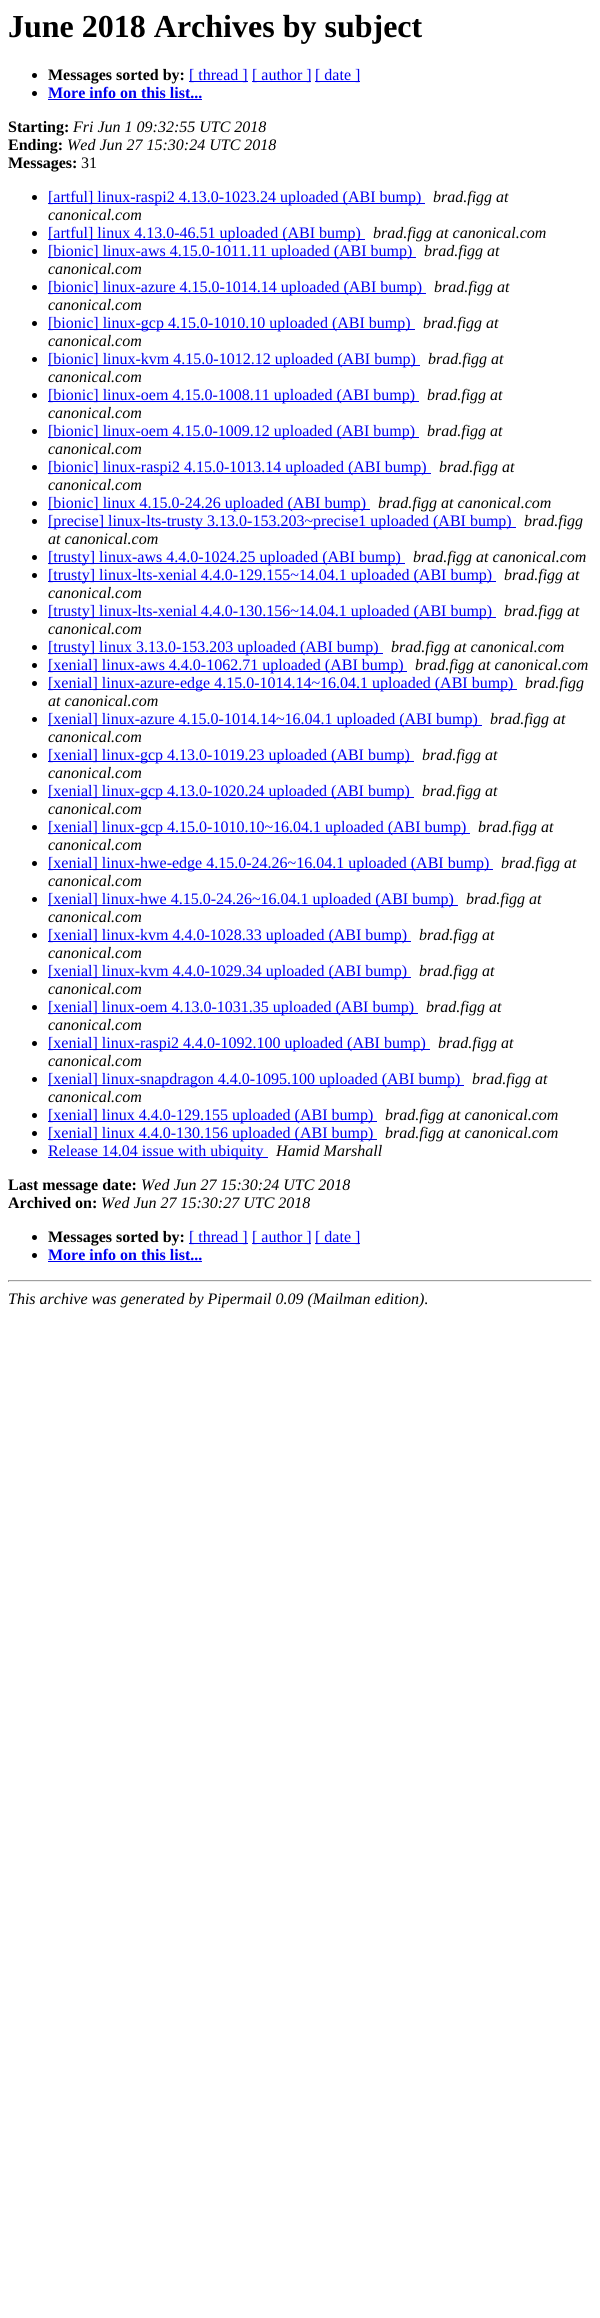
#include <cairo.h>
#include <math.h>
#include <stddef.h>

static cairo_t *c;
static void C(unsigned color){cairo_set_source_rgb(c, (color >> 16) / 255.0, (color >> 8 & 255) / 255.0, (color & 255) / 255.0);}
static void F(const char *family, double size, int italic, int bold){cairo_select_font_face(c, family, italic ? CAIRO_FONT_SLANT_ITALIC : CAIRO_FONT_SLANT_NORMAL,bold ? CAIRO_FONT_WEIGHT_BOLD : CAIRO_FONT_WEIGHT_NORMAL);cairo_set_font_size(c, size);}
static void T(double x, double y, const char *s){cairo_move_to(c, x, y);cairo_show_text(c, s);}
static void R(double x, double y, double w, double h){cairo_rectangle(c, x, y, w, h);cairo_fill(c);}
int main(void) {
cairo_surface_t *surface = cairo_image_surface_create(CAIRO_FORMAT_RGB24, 600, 2318);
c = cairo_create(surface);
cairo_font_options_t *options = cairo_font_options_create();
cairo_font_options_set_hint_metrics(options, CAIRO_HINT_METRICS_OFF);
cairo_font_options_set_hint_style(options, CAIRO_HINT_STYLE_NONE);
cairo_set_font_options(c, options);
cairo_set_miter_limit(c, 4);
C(0xffffff);
cairo_paint(c);
F("Liberation Serif",32,0,1);
C(0x000000);
T(8,37,"June 2018 Archives by subject");
cairo_new_path(c);
cairo_arc(c,34.5,75.5,2.5,0,2 * M_PI);
cairo_fill(c);
F("Liberation Serif",16,0,1);
T(48,80,"Messages sorted by:");
C(0x0000ee);
R(189,81,59,1);
F("Liberation Serif",16,0,0);
T(189,80,"[ thread ]");
R(252,81,59,1);
T(252,80,"[ author ]");
R(315,81,45,1);
T(315,80,"[ date ]");
C(0x000000);
cairo_new_path(c);
cairo_arc(c,34.5,93.5,2.5,0,2 * M_PI);
cairo_fill(c);
F("Liberation Serif",16,0,1);
C(0x0000ee);
T(48,98,"More info on this list...");
R(48,99,154,1);
C(0x000000);
T(8,132,"Starting:");
F("Liberation Serif",16,1,0);
T(73,132,"Fri Jun 1 09:32:55 UTC 2018");
F("Liberation Serif",16,0,1);
T(8,150,"Ending:");
F("Liberation Serif",16,1,0);
T(67,150,"Wed Jun 27 15:30:24 UTC 2018");
F("Liberation Serif",16,0,1);
T(8,168,"Messages:");
F("Liberation Serif",16,0,0);
T(81,168,"31");
cairo_new_path(c);
cairo_arc(c,34.5,197.5,2.5,0,2 * M_PI);
cairo_fill(c);
C(0x0000ee);
R(48,203,377,1);
T(48,202,"[artful] linux-raspi2 4.13.0-1023.24 uploaded (ABI bump)");
F("Liberation Serif",16,1,0);
C(0x000000);
T(433,202,"brad.figg at");
T(48,220,"canonical.com");
cairo_new_path(c);
cairo_arc(c,34.5,233.5,2.5,0,2 * M_PI);
cairo_fill(c);
C(0x0000ee);
R(48,239,317,1);
F("Liberation Serif",16,0,0);
T(48,238,"[artful] linux 4.13.0-46.51 uploaded (ABI bump)");
F("Liberation Serif",16,1,0);
C(0x000000);
T(373,238,"brad.figg at canonical.com");
cairo_new_path(c);
cairo_arc(c,34.5,251.5,2.5,0,2 * M_PI);
cairo_fill(c);
C(0x0000ee);
R(48,257,368,1);
F("Liberation Serif",16,0,0);
T(48,256,"[bionic] linux-aws 4.15.0-1011.11 uploaded (ABI bump)");
F("Liberation Serif",16,1,0);
C(0x000000);
T(424,256,"brad.figg at");
T(48,274,"canonical.com");
cairo_new_path(c);
cairo_arc(c,34.5,287.5,2.5,0,2 * M_PI);
cairo_fill(c);
C(0x0000ee);
R(48,293,378,1);
F("Liberation Serif",16,0,0);
T(48,292,"[bionic] linux-azure 4.15.0-1014.14 uploaded (ABI bump)");
F("Liberation Serif",16,1,0);
C(0x000000);
T(434,292,"brad.figg at");
T(48,310,"canonical.com");
cairo_new_path(c);
cairo_arc(c,34.5,323.5,2.5,0,2 * M_PI);
cairo_fill(c);
C(0x0000ee);
R(48,329,367,1);
F("Liberation Serif",16,0,0);
T(48,328,"[bionic] linux-gcp 4.15.0-1010.10 uploaded (ABI bump)");
F("Liberation Serif",16,1,0);
C(0x000000);
T(423,328,"brad.figg at");
T(48,346,"canonical.com");
cairo_new_path(c);
cairo_arc(c,34.5,359.5,2.5,0,2 * M_PI);
cairo_fill(c);
C(0x0000ee);
R(48,365,372,1);
F("Liberation Serif",16,0,0);
T(48,364,"[bionic] linux-kvm 4.15.0-1012.12 uploaded (ABI bump)");
F("Liberation Serif",16,1,0);
C(0x000000);
T(428,364,"brad.figg at");
T(48,382,"canonical.com");
cairo_new_path(c);
cairo_arc(c,34.5,395.5,2.5,0,2 * M_PI);
cairo_fill(c);
C(0x0000ee);
R(48,401,371,1);
F("Liberation Serif",16,0,0);
T(48,400,"[bionic] linux-oem 4.15.0-1008.11 uploaded (ABI bump)");
F("Liberation Serif",16,1,0);
C(0x000000);
T(427,400,"brad.figg at");
T(48,418,"canonical.com");
cairo_new_path(c);
cairo_arc(c,34.5,431.5,2.5,0,2 * M_PI);
cairo_fill(c);
C(0x0000ee);
R(48,437,371,1);
F("Liberation Serif",16,0,0);
T(48,436,"[bionic] linux-oem 4.15.0-1009.12 uploaded (ABI bump)");
F("Liberation Serif",16,1,0);
C(0x000000);
T(427,436,"brad.figg at");
T(48,454,"canonical.com");
cairo_new_path(c);
cairo_arc(c,34.5,467.5,2.5,0,2 * M_PI);
cairo_fill(c);
C(0x0000ee);
R(48,473,383,1);
F("Liberation Serif",16,0,0);
T(48,472,"[bionic] linux-raspi2 4.15.0-1013.14 uploaded (ABI bump)");
F("Liberation Serif",16,1,0);
C(0x000000);
T(439,472,"brad.figg at");
T(48,490,"canonical.com");
cairo_new_path(c);
cairo_arc(c,34.5,503.5,2.5,0,2 * M_PI);
cairo_fill(c);
C(0x0000ee);
R(48,509,322,1);
F("Liberation Serif",16,0,0);
T(48,508,"[bionic] linux 4.15.0-24.26 uploaded (ABI bump)");
F("Liberation Serif",16,1,0);
C(0x000000);
T(378,508,"brad.figg at canonical.com");
cairo_new_path(c);
cairo_arc(c,34.5,521.5,2.5,0,2 * M_PI);
cairo_fill(c);
C(0x0000ee);
R(48,527,468,1);
F("Liberation Serif",16,0,0);
T(48,526,"[precise] linux-lts-trusty 3.13.0-153.203~precise1 uploaded (ABI bump)");
F("Liberation Serif",16,1,0);
C(0x000000);
T(524,526,"brad.figg");
T(48,544,"at canonical.com");
cairo_new_path(c);
cairo_arc(c,34.5,557.5,2.5,0,2 * M_PI);
cairo_fill(c);
C(0x0000ee);
R(48,563,357,1);
F("Liberation Serif",16,0,0);
T(48,562,"[trusty] linux-aws 4.4.0-1024.25 uploaded (ABI bump)");
F("Liberation Serif",16,1,0);
C(0x000000);
T(413,562,"brad.figg at canonical.com");
cairo_new_path(c);
cairo_arc(c,34.5,575.5,2.5,0,2 * M_PI);
cairo_fill(c);
C(0x0000ee);
R(48,581,448,1);
F("Liberation Serif",16,0,0);
T(48,580,"[trusty] linux-lts-xenial 4.4.0-129.155~14.04.1 uploaded (ABI bump)");
F("Liberation Serif",16,1,0);
C(0x000000);
T(504,580,"brad.figg at");
T(48,598,"canonical.com");
cairo_new_path(c);
cairo_arc(c,34.5,611.5,2.5,0,2 * M_PI);
cairo_fill(c);
C(0x0000ee);
R(48,617,448,1);
F("Liberation Serif",16,0,0);
T(48,616,"[trusty] linux-lts-xenial 4.4.0-130.156~14.04.1 uploaded (ABI bump)");
F("Liberation Serif",16,1,0);
C(0x000000);
T(504,616,"brad.figg at");
T(48,634,"canonical.com");
cairo_new_path(c);
cairo_arc(c,34.5,647.5,2.5,0,2 * M_PI);
cairo_fill(c);
C(0x0000ee);
R(48,653,335,1);
F("Liberation Serif",16,0,0);
T(48,652,"[trusty] linux 3.13.0-153.203 uploaded (ABI bump)");
F("Liberation Serif",16,1,0);
C(0x000000);
T(391,652,"brad.figg at canonical.com");
cairo_new_path(c);
cairo_arc(c,34.5,665.5,2.5,0,2 * M_PI);
cairo_fill(c);
C(0x0000ee);
R(48,671,359,1);
F("Liberation Serif",16,0,0);
T(48,670,"[xenial] linux-aws 4.4.0-1062.71 uploaded (ABI bump)");
F("Liberation Serif",16,1,0);
C(0x000000);
T(415,670,"brad.figg at canonical.com");
cairo_new_path(c);
cairo_arc(c,34.5,683.5,2.5,0,2 * M_PI);
cairo_fill(c);
C(0x0000ee);
R(48,689,469,1);
F("Liberation Serif",16,0,0);
T(48,688,"[xenial] linux-azure-edge 4.15.0-1014.14~16.04.1 uploaded (ABI bump)");
F("Liberation Serif",16,1,0);
C(0x000000);
T(525,688,"brad.figg");
T(48,706,"at canonical.com");
cairo_new_path(c);
cairo_arc(c,34.5,719.5,2.5,0,2 * M_PI);
cairo_fill(c);
C(0x0000ee);
R(48,725,434,1);
F("Liberation Serif",16,0,0);
T(48,724,"[xenial] linux-azure 4.15.0-1014.14~16.04.1 uploaded (ABI bump)");
F("Liberation Serif",16,1,0);
C(0x000000);
T(490,724,"brad.figg at");
T(48,742,"canonical.com");
cairo_new_path(c);
cairo_arc(c,34.5,755.5,2.5,0,2 * M_PI);
cairo_fill(c);
C(0x0000ee);
R(48,761,366,1);
F("Liberation Serif",16,0,0);
T(48,760,"[xenial] linux-gcp 4.13.0-1019.23 uploaded (ABI bump)");
F("Liberation Serif",16,1,0);
C(0x000000);
T(422,760,"brad.figg at");
T(48,778,"canonical.com");
cairo_new_path(c);
cairo_arc(c,34.5,791.5,2.5,0,2 * M_PI);
cairo_fill(c);
C(0x0000ee);
R(48,797,366,1);
F("Liberation Serif",16,0,0);
T(48,796,"[xenial] linux-gcp 4.13.0-1020.24 uploaded (ABI bump)");
F("Liberation Serif",16,1,0);
C(0x000000);
T(422,796,"brad.figg at");
T(48,814,"canonical.com");
cairo_new_path(c);
cairo_arc(c,34.5,827.5,2.5,0,2 * M_PI);
cairo_fill(c);
C(0x0000ee);
R(48,833,422,1);
F("Liberation Serif",16,0,0);
T(48,832,"[xenial] linux-gcp 4.15.0-1010.10~16.04.1 uploaded (ABI bump)");
F("Liberation Serif",16,1,0);
C(0x000000);
T(478,832,"brad.figg at");
T(48,850,"canonical.com");
cairo_new_path(c);
cairo_arc(c,34.5,863.5,2.5,0,2 * M_PI);
cairo_fill(c);
C(0x0000ee);
R(48,869,445,1);
F("Liberation Serif",16,0,0);
T(48,868,"[xenial] linux-hwe-edge 4.15.0-24.26~16.04.1 uploaded (ABI bump)");
F("Liberation Serif",16,1,0);
C(0x000000);
T(501,868,"brad.figg at");
T(48,886,"canonical.com");
cairo_new_path(c);
cairo_arc(c,34.5,899.5,2.5,0,2 * M_PI);
cairo_fill(c);
C(0x0000ee);
R(48,905,410,1);
F("Liberation Serif",16,0,0);
T(48,904,"[xenial] linux-hwe 4.15.0-24.26~16.04.1 uploaded (ABI bump)");
F("Liberation Serif",16,1,0);
C(0x000000);
T(466,904,"brad.figg at");
T(48,922,"canonical.com");
cairo_new_path(c);
cairo_arc(c,34.5,935.5,2.5,0,2 * M_PI);
cairo_fill(c);
C(0x0000ee);
R(48,941,363,1);
F("Liberation Serif",16,0,0);
T(48,940,"[xenial] linux-kvm 4.4.0-1028.33 uploaded (ABI bump)");
F("Liberation Serif",16,1,0);
C(0x000000);
T(419,940,"brad.figg at");
T(48,958,"canonical.com");
cairo_new_path(c);
cairo_arc(c,34.5,971.5,2.5,0,2 * M_PI);
cairo_fill(c);
C(0x0000ee);
R(48,977,363,1);
F("Liberation Serif",16,0,0);
T(48,976,"[xenial] linux-kvm 4.4.0-1029.34 uploaded (ABI bump)");
F("Liberation Serif",16,1,0);
C(0x000000);
T(419,976,"brad.figg at");
T(48,994,"canonical.com");
cairo_new_path(c);
cairo_arc(c,34.5,1007.5,2.5,0,2 * M_PI);
cairo_fill(c);
C(0x0000ee);
R(48,1013,370,1);
F("Liberation Serif",16,0,0);
T(48,1012,"[xenial] linux-oem 4.13.0-1031.35 uploaded (ABI bump)");
F("Liberation Serif",16,1,0);
C(0x000000);
T(426,1012,"brad.figg at");
T(48,1030,"canonical.com");
cairo_new_path(c);
cairo_arc(c,34.5,1043.5,2.5,0,2 * M_PI);
cairo_fill(c);
C(0x0000ee);
R(48,1049,382,1);
F("Liberation Serif",16,0,0);
T(48,1048,"[xenial] linux-raspi2 4.4.0-1092.100 uploaded (ABI bump)");
F("Liberation Serif",16,1,0);
C(0x000000);
T(438,1048,"brad.figg at");
T(48,1066,"canonical.com");
cairo_new_path(c);
cairo_arc(c,34.5,1079.5,2.5,0,2 * M_PI);
cairo_fill(c);
C(0x0000ee);
R(48,1085,416,1);
F("Liberation Serif",16,0,0);
T(48,1084,"[xenial] linux-snapdragon 4.4.0-1095.100 uploaded (ABI bump)");
F("Liberation Serif",16,1,0);
C(0x000000);
T(472,1084,"brad.figg at");
T(48,1102,"canonical.com");
cairo_new_path(c);
cairo_arc(c,34.5,1115.5,2.5,0,2 * M_PI);
cairo_fill(c);
C(0x0000ee);
R(48,1121,329,1);
F("Liberation Serif",16,0,0);
T(48,1120,"[xenial] linux 4.4.0-129.155 uploaded (ABI bump)");
F("Liberation Serif",16,1,0);
C(0x000000);
T(385,1120,"brad.figg at canonical.com");
cairo_new_path(c);
cairo_arc(c,34.5,1133.5,2.5,0,2 * M_PI);
cairo_fill(c);
C(0x0000ee);
R(48,1139,329,1);
F("Liberation Serif",16,0,0);
T(48,1138,"[xenial] linux 4.4.0-130.156 uploaded (ABI bump)");
F("Liberation Serif",16,1,0);
C(0x000000);
T(385,1138,"brad.figg at canonical.com");
cairo_new_path(c);
cairo_arc(c,34.5,1151.5,2.5,0,2 * M_PI);
cairo_fill(c);
C(0x0000ee);
R(48,1157,220,1);
F("Liberation Serif",16,0,0);
T(48,1156,"Release 14.04 issue with ubiquity");
F("Liberation Serif",16,1,0);
C(0x000000);
T(276,1156,"Hamid Marshall");
F("Liberation Serif",16,0,1);
T(8,1190,"Last message date:");
F("Liberation Serif",16,1,0);
T(141,1190,"Wed Jun 27 15:30:24 UTC 2018");
F("Liberation Serif",16,0,1);
T(8,1208,"Archived on:");
F("Liberation Serif",16,1,0);
T(101,1208,"Wed Jun 27 15:30:27 UTC 2018");
cairo_new_path(c);
cairo_arc(c,34.5,1237.5,2.5,0,2 * M_PI);
cairo_fill(c);
F("Liberation Serif",16,0,1);
T(48,1242,"Messages sorted by:");
C(0x0000ee);
R(189,1243,59,1);
F("Liberation Serif",16,0,0);
T(189,1242,"[ thread ]");
R(252,1243,59,1);
T(252,1242,"[ author ]");
R(315,1243,45,1);
T(315,1242,"[ date ]");
C(0x000000);
cairo_new_path(c);
cairo_arc(c,34.5,1255.5,2.5,0,2 * M_PI);
cairo_fill(c);
F("Liberation Serif",16,0,1);
C(0x0000ee);
T(48,1260,"More info on this list...");
R(48,1261,154,1);
C(0x9f9f9f);
R(8,1280,584,1);
C(0xeeeeee);
R(591,1280,1,2);
R(8,1281,584,1);
C(0x9f9f9f);
R(8,1280,1,2);
F("Liberation Serif",16,1,0);
C(0x000000);
T(8,1304,"This archive was generated by Pipermail 0.09 (Mailman edition).");
cairo_surface_write_to_png(surface, "o.png");
cairo_font_options_destroy(options);
cairo_destroy(c);
cairo_surface_destroy(surface);
return 0;
}
